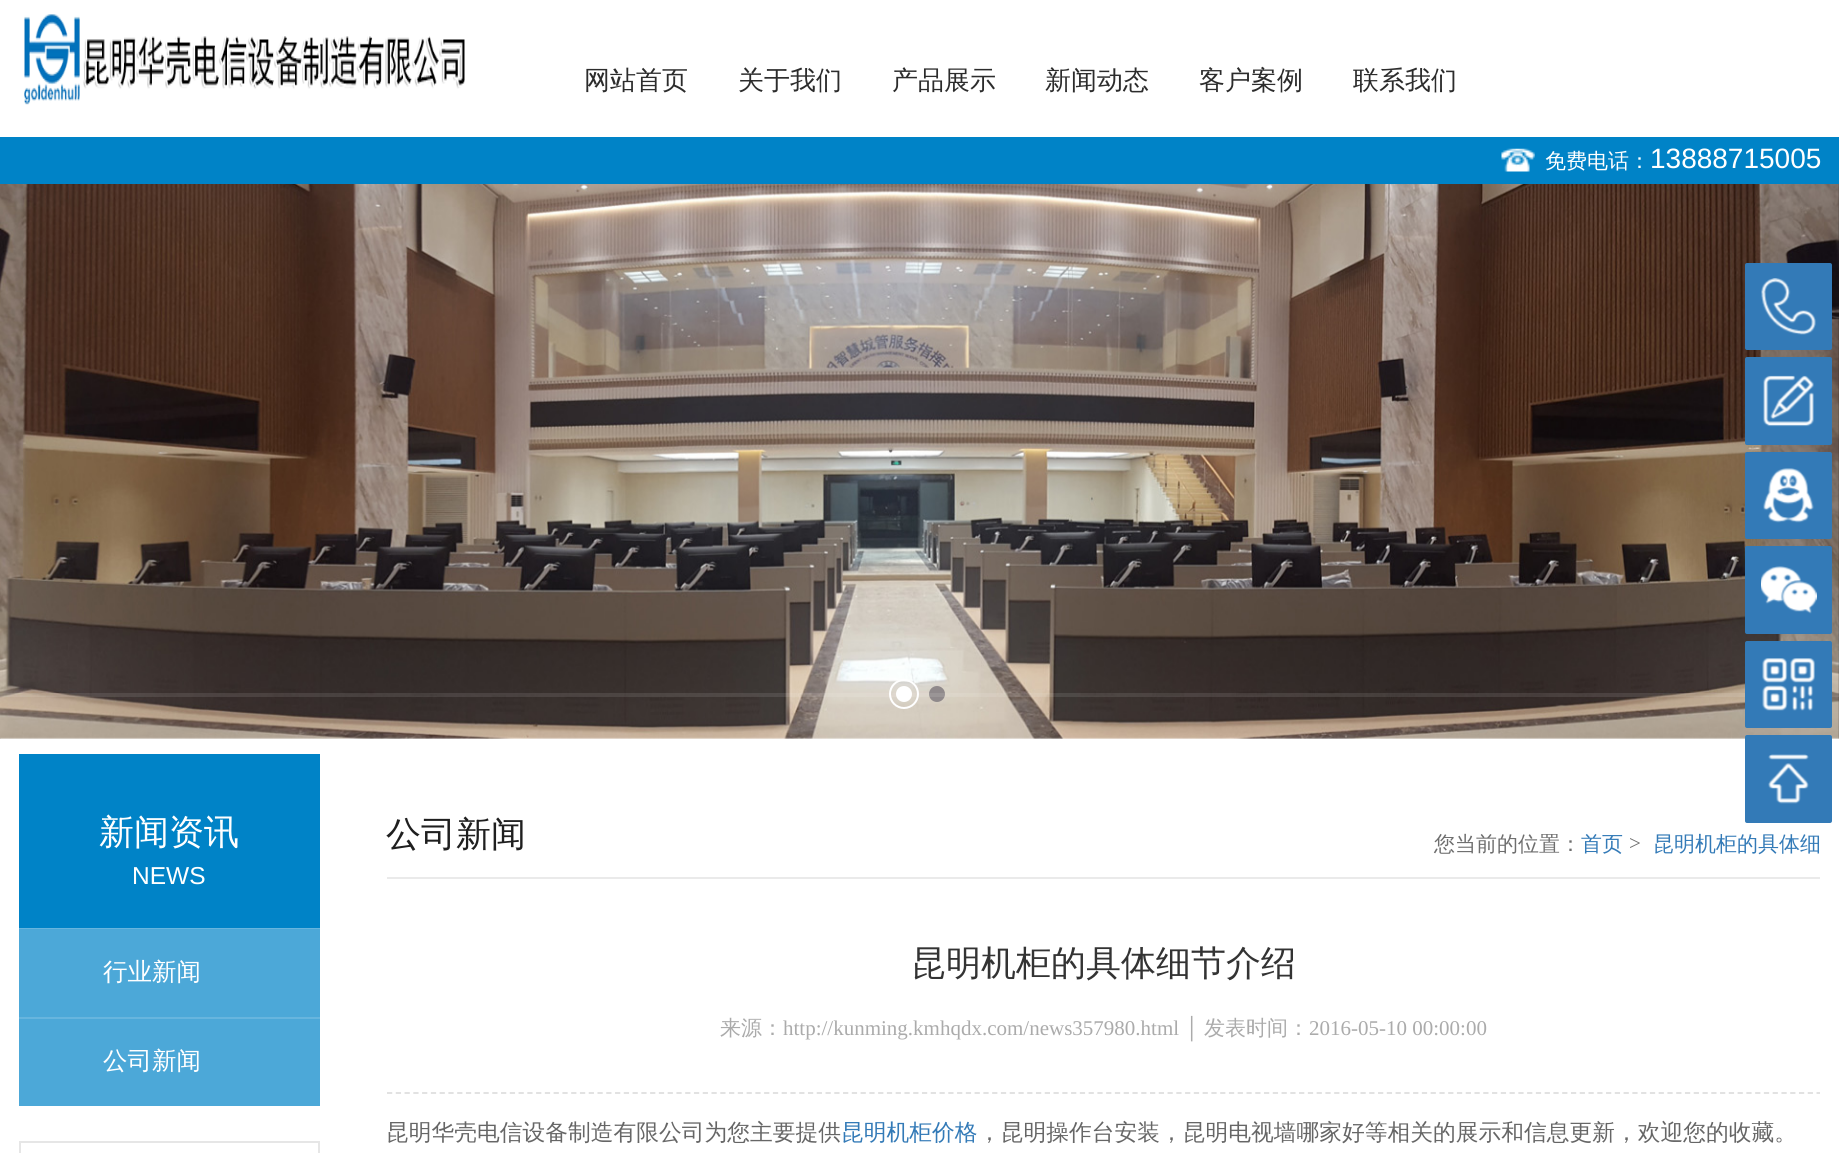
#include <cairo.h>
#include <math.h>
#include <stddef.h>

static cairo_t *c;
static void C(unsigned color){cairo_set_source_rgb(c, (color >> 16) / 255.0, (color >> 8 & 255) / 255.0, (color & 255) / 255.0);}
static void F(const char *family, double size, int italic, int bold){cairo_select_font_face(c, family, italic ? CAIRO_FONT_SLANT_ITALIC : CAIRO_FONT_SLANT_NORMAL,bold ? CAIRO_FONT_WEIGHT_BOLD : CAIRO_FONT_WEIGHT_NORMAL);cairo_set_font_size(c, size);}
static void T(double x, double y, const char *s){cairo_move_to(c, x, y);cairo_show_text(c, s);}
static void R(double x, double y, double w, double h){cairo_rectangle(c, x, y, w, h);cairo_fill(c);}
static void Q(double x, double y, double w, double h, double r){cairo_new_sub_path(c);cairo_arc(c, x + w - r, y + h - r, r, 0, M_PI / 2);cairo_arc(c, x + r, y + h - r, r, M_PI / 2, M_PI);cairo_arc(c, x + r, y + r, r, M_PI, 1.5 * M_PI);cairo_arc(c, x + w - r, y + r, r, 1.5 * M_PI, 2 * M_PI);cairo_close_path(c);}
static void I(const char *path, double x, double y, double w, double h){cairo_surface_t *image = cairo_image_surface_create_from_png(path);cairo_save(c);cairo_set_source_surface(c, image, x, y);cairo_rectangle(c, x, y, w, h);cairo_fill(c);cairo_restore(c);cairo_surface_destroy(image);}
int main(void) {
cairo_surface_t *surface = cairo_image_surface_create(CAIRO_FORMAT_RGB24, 1839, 1153);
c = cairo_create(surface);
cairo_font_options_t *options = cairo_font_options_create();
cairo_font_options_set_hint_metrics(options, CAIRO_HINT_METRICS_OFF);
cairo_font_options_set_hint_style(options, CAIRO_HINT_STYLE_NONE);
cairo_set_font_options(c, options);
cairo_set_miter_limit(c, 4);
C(0xffffff);
cairo_paint(c);
I("1.png",24,14,441,91);
F("WenQuanYi Zen Hei Medium",26,0,0);
C(0x2c2c2c);
T(584,89,"网站首页");
T(738,89,"关于我们");
T(892,89,"产品展示");
T(1045,89,"新闻动态");
T(1199,89,"客户案例");
T(1353,89,"联系我们");
C(0x0083c7);
R(0,137,1839,47);
I("2.png",1501,148,34,24);
F("WenQuanYi Zen Hei Medium",21,0,0);
C(0xffffff);
T(1545,168,"免费电话：");
F("Liberation Sans",28,0,0);
T(1650,168,"13888715005");
I("4.png",0,737,1,2);
I("3.png",0,184,1839,555);
I("5.png",1838,184,1,555);
cairo_arc(c,904,694,8,0,2 * M_PI);
cairo_fill(c);
cairo_arc(c,904,694,14,0,2 * M_PI);
cairo_stroke(c);
C(0x8f898b);
cairo_arc(c,937,694,8,0,2 * M_PI);
cairo_fill(c);
cairo_set_source_rgba(c,1,1,1,0.1);
R(0,693,1839,4);
C(0x0083c7);
R(19,754,301,174);
F("WenQuanYi Zen Hei Medium",35,0,0);
C(0xffffff);
T(99,844,"新闻资讯");
F("Liberation Sans",24.5,0,0);
T(132,884,"NEWS");
C(0x4ca8d8);
R(19,1019,301,87);
C(0x67b5de);
R(19,928,301,1);
C(0x4ca8d8);
R(19,929,301,88);
F("WenQuanYi Zen Hei Medium",24.5,0,0);
C(0xffffff);
T(103,980,"行业新闻");
C(0x67b5de);
R(19,1017,301,2);
C(0xffffff);
T(103,1069,"公司新闻");
cairo_rectangle(c,20,1142,299,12);
C(0xe6e6e6);
cairo_stroke(c);
C(0xeaeaea);
R(387,877,1433,2);
F("WenQuanYi Zen Hei Medium",35,0,0);
C(0x1f1f1f);
T(386,846,"公司新闻");
F("WenQuanYi Zen Hei Medium",21,0,0);
C(0x6e6e6e);
T(1434,851,"您当前的位置：");
C(0x337ab7);
T(1581,851,"首页");
F("Liberation Serif",21,0,0);
C(0x6e6e6e);
T(1629,850,">");
F("WenQuanYi Zen Hei Medium",21,0,0);
C(0x337ab7);
T(1653,851,"昆明机柜的具体细");
cairo_new_path(c);
cairo_move_to(c,387,1093);
cairo_line_to(c,1820,1093);
C(0xdfdfdf);
cairo_set_line_width(c,1.8);
cairo_set_dash(c,(double[]){5.25,3.52},2,0);
cairo_stroke(c);
F("WenQuanYi Zen Hei Medium",35,0,0);
C(0x333333);
T(911,975,"昆明机柜的具体细节介绍");
F("WenQuanYi Zen Hei Medium",21,0,0);
C(0xababab);
T(720,1035,"来源：");
F("Liberation Serif",21,0,0);
T(783,1035,"http://kunming.kmhqdx.com/news357980.html │");
F("WenQuanYi Zen Hei Medium",21,0,0);
T(1204,1035,"发表时间：");
F("Liberation Serif",21,0,0);
T(1309,1035,"2016-05-10 00:00:00");
F("WenQuanYi Zen Hei Medium",22.75,0,0);
C(0x666666);
T(386,1140,"昆明华壳电信设备制造有限公司为您主要提供");
C(0x337ab7);
T(841,1140,"昆明机柜价格");
C(0x666666);
T(978,1140,"，昆明操作台安装，昆明电视墙哪家好等相关的展示和信息更新，欢迎您的收藏。");
C(0x337ab7);
Q(1745,263,87,87,2);
cairo_fill(c);
I("6.png",1761,278,55,57);
Q(1745,357,87,88,2);
cairo_fill(c);
I("7.png",1763,375,51,52);
Q(1745,452,87,87,2);
cairo_fill(c);
I("8.png",1763,468,51,55);
Q(1745,546,87,88,2);
cairo_fill(c);
I("9.png",1761,566,56,48);
Q(1745,641,87,87,2);
cairo_fill(c);
I("10.png",1762,658,53,53);
Q(1745,735,87,88,2);
cairo_fill(c);
I("11.png",1768,754,41,50);
cairo_surface_write_to_png(surface, "o.png");
cairo_font_options_destroy(options);
cairo_destroy(c);
cairo_surface_destroy(surface);
return 0;
}
